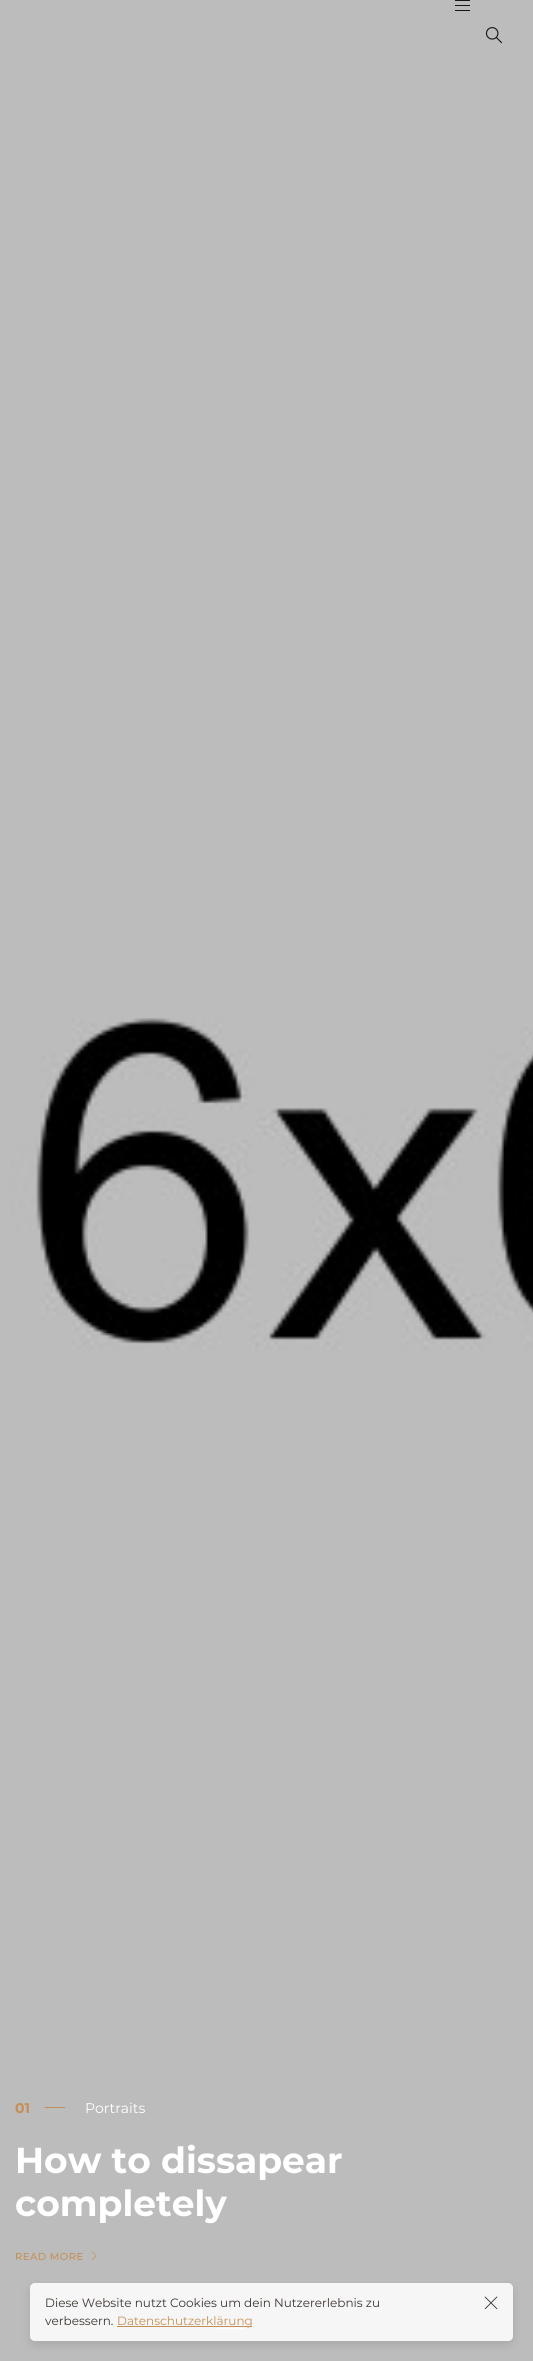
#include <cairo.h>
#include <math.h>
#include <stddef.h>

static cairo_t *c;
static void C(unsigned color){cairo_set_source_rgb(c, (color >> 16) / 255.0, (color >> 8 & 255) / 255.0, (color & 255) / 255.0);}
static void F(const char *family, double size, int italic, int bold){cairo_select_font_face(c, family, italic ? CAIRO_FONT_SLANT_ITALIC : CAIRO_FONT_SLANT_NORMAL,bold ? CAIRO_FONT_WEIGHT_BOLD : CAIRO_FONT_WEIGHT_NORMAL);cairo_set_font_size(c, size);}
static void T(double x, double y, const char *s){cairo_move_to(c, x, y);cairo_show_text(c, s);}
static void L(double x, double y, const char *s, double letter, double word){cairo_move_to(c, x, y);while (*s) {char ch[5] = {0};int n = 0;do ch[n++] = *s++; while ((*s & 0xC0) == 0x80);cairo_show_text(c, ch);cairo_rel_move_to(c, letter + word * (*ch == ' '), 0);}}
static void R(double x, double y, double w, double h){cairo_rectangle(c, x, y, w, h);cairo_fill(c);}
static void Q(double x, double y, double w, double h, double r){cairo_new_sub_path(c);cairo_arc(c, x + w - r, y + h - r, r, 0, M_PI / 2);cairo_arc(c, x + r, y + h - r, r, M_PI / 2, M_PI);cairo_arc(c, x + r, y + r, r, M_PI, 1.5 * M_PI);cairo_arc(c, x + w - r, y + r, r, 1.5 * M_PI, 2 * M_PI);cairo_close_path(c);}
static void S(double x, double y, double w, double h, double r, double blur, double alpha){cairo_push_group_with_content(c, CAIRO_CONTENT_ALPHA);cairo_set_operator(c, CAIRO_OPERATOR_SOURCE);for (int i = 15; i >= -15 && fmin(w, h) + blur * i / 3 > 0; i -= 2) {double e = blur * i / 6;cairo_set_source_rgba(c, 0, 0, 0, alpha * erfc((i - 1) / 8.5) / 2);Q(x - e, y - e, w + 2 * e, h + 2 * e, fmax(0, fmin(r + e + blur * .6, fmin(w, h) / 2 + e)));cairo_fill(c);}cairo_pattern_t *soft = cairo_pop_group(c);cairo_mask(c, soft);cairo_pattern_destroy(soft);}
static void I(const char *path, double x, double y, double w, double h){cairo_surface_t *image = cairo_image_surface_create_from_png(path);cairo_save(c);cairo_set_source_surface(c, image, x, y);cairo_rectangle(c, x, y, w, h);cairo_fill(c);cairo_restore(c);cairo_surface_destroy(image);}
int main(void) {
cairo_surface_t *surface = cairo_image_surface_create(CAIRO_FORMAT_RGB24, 533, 2361);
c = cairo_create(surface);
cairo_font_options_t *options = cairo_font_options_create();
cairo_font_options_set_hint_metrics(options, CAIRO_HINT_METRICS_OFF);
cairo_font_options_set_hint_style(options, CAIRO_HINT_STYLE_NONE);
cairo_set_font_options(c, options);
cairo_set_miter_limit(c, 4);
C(0xffffff);
cairo_paint(c);
I("2.png",0,0,533,2361);
C(0x161616);
R(455,0,15,1);
R(455,5,15,1);
R(455,10,15,1);
I("1.png",485,27,17,17);
F("Montserrat",14,0,1);
C(0xc48f56);
T(15,2113,"01");
R(45,2107,20,1);
F("Montserrat",14,0,0);
C(0xffffff);
T(85,2113,"Portraits");
F("Montserrat",36,0,1);
T(15,2173,"How to dissapear");
T(15,2216,"completely");
F("Montserrat Medium",10,0,0);
C(0xc48f56);
L(15,2260,"READ MORE",.5,0);
I("3.png",91,2251,6,9);
C(0xffffff);
R(215,2328,30,1);
cairo_save(c);
cairo_set_fill_rule(c,CAIRO_FILL_RULE_EVEN_ODD);
cairo_new_path(c);
cairo_move_to(c,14,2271);
cairo_line_to(c,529,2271);
cairo_line_to(c,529,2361);
cairo_line_to(c,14,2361);
cairo_close_path(c);
cairo_move_to(c,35,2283);
cairo_line_to(c,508,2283);
cairo_curve_to(c,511,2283,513,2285,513,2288);
cairo_line_to(c,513,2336);
cairo_curve_to(c,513,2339,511,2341,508,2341);
cairo_line_to(c,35,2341);
cairo_curve_to(c,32,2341,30,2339,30,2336);
cairo_line_to(c,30,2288);
cairo_curve_to(c,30,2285,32,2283,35,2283);
cairo_close_path(c);
cairo_clip(c);
C(0x000000);
S(30,2287,483,58,5,5,.1);
cairo_restore(c);
cairo_set_source_rgba(c,0.992,0.992,0.992,0.9);
Q(30,2283,483,58,5);
cairo_fill(c);
F("Montserrat",12,0,0);
C(0x3c3531);
T(45,2307,"Diese Website nutzt Cookies um dein Nutzererlebnis zu");
T(45,2325,"verbessern.");
C(0xc48f56);
R(117,2326,135,1);
T(117,2325,"Datenschutzerklärung");
I("4.png",484,2296,14,14);
cairo_surface_write_to_png(surface, "o.png");
cairo_font_options_destroy(options);
cairo_destroy(c);
cairo_surface_destroy(surface);
return 0;
}
